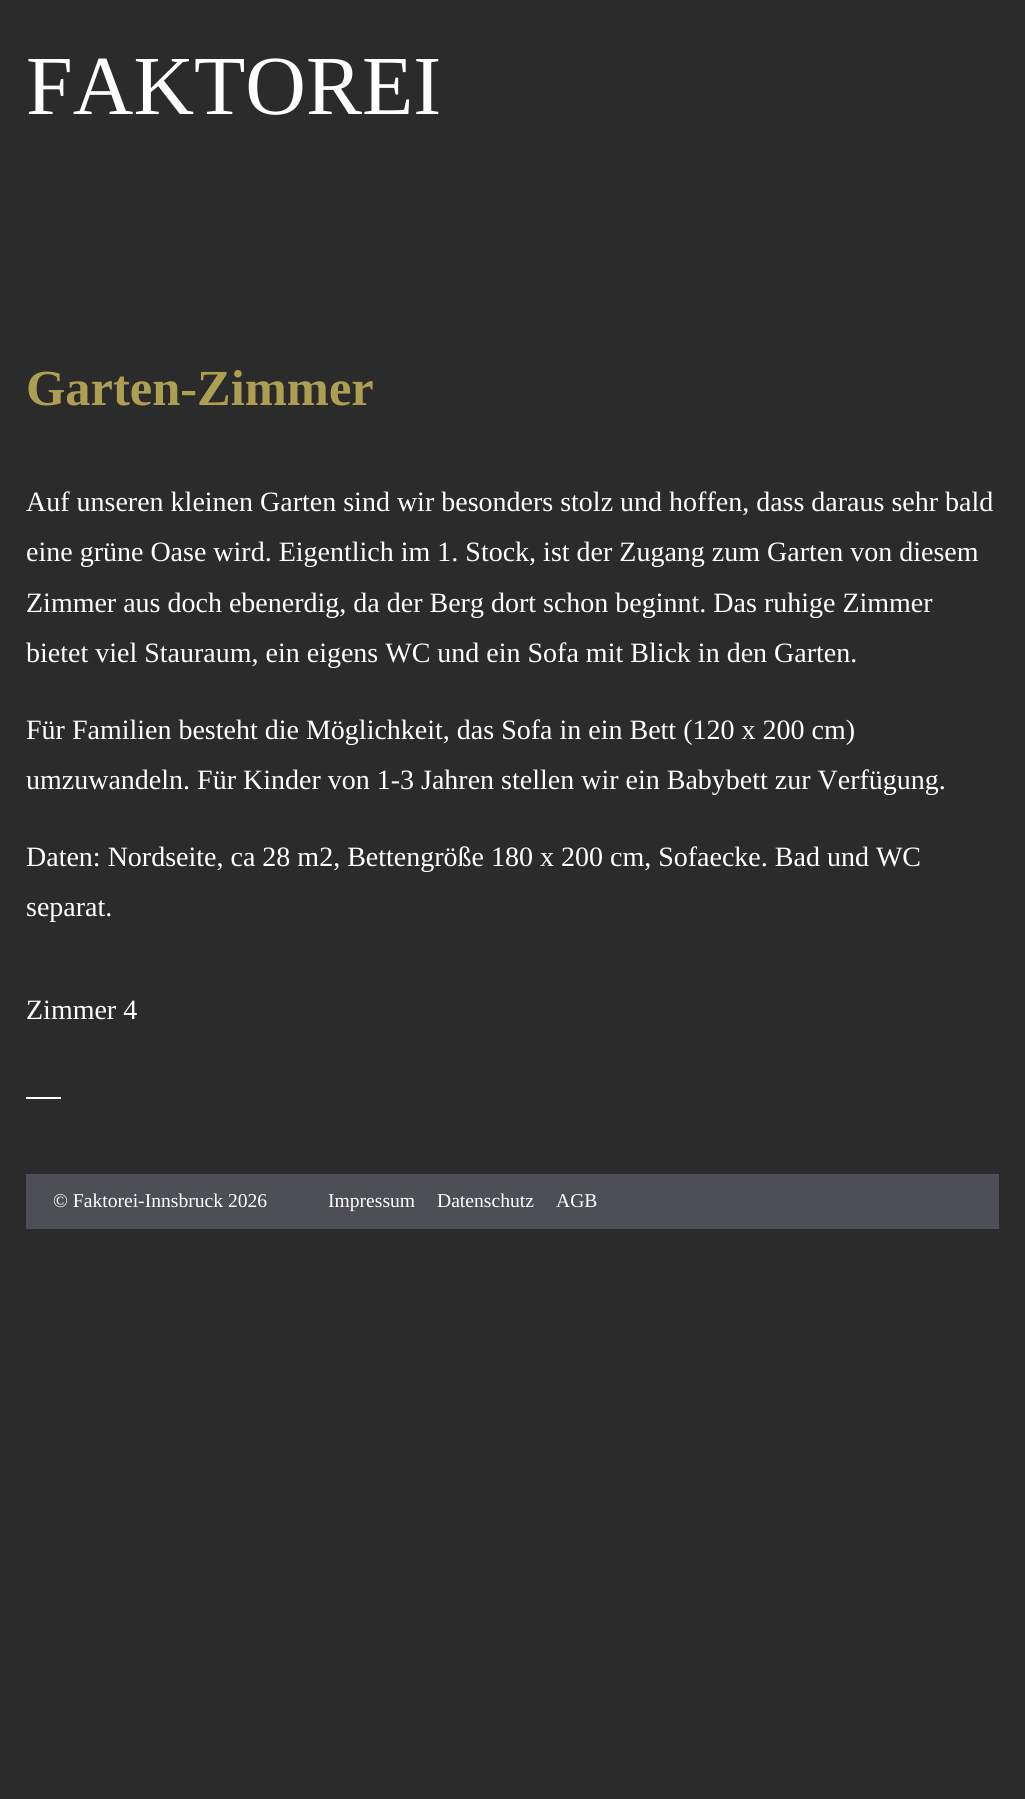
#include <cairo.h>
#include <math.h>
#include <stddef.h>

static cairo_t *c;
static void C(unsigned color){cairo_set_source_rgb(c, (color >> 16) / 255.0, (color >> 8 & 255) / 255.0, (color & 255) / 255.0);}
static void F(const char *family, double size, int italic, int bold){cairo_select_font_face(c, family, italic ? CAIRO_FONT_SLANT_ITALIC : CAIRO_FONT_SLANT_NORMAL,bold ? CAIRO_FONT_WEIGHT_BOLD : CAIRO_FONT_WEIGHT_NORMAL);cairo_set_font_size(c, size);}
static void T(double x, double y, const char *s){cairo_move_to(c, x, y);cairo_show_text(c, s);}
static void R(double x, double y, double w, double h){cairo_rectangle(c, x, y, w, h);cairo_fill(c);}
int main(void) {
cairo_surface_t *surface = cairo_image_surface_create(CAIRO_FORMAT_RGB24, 1025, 1799);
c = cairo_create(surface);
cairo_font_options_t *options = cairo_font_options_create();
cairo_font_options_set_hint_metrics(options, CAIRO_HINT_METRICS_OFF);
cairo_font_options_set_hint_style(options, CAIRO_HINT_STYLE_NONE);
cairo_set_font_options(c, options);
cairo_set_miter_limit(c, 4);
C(0x2b2b2b);
cairo_paint(c);
F("Liberation Serif",84,0,0);
C(0xffffff);
T(26,114,"FAKTOREI");
F("Liberation Serif",50.5,0,1);
C(0xac9f51);
T(26,405,"Garten-Zimmer");
F("Liberation Serif",28,0,0);
C(0xffffff);
T(26,511,"Auf unseren kleinen Garten sind wir besonders stolz und hoffen, dass daraus sehr bald");
T(26,561,"eine grüne Oase wird. Eigentlich im 1. Stock, ist der Zugang zum Garten von diesem");
T(26,612,"Zimmer aus doch ebenerdig, da der Berg dort schon beginnt. Das ruhige Zimmer");
T(26,662,"bietet viel Stauraum, ein eigens WC und ein Sofa mit Blick in den Garten.");
T(26,739,"Für Familien besteht die Möglichkeit, das Sofa in ein Bett (120 x 200 cm)");
T(26,789,"umzuwandeln. Für Kinder von 1-3 Jahren stellen wir ein Babybett zur Verfügung.");
T(26,866,"Daten: Nordseite, ca 28 m2, Bettengröße 180 x 200 cm, Sofaecke. Bad und WC");
T(26,916,"separat.");
T(26,1019,"Zimmer 4");
R(26,1097,35,2);
C(0x4e4f56);
R(26,1174,973,55);
F("Liberation Serif",19.6,0,0);
C(0xffffff);
T(53,1207,"© Faktorei-Innsbruck 2026");
T(328,1207,"Impressum");
T(437,1207,"Datenschutz");
T(556,1207,"AGB");
cairo_surface_write_to_png(surface, "o.png");
cairo_font_options_destroy(options);
cairo_destroy(c);
cairo_surface_destroy(surface);
return 0;
}
